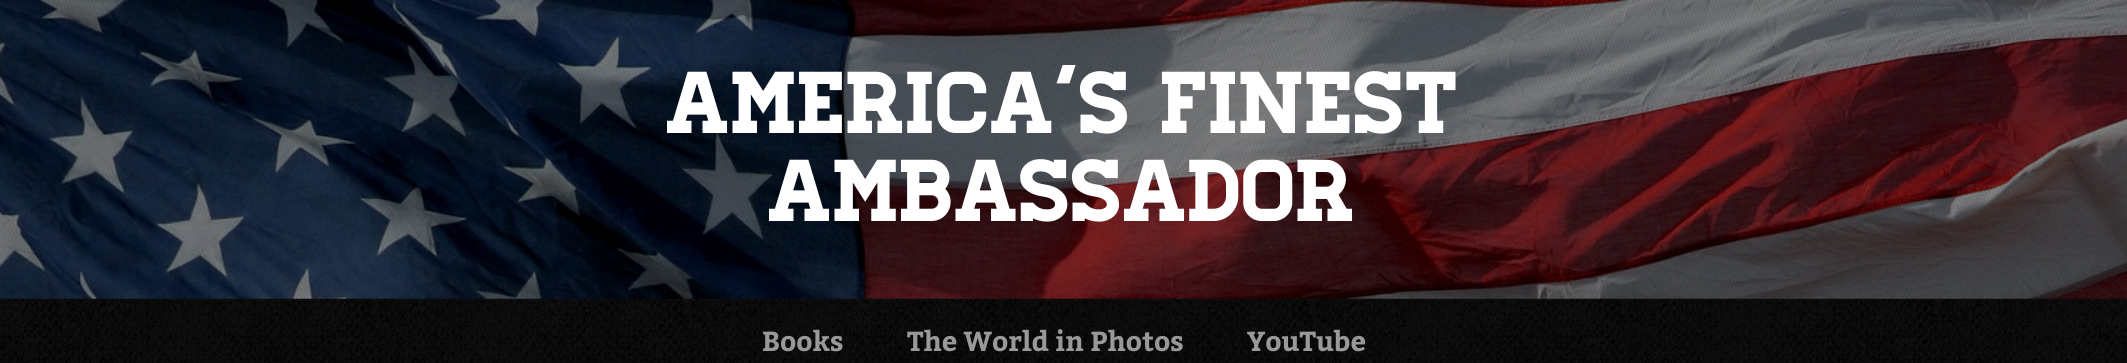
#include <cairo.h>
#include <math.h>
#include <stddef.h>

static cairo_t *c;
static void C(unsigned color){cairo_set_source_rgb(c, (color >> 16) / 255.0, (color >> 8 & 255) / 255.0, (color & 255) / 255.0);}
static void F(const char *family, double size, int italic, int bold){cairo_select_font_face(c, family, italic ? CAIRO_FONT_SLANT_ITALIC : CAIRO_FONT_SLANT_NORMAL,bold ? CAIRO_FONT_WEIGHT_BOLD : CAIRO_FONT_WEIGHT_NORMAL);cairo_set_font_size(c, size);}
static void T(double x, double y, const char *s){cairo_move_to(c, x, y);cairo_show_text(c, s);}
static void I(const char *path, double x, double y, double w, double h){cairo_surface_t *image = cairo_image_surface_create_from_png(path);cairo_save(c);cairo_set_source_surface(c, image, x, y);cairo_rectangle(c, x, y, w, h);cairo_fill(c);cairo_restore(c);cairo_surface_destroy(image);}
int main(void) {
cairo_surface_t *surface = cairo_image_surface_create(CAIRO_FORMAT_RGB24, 2127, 363);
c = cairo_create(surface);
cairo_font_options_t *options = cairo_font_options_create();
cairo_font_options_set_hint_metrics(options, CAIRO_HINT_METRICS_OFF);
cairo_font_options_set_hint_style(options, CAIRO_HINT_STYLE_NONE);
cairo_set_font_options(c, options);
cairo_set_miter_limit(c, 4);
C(0xffffff);
cairo_paint(c);
I("1.png",0,298,2127,1);
I("2.png",0,0,2127,299);
F("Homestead",87.5,0,0);
C(0xffffff);
T(667,133,"America's Finest");
T(769,221,"Ambassador");
I("3.png",0,299,2127,64);
F("Bitter",27.5,0,1);
C(0x999999);
T(762,351,"Books");
T(907,351,"The World in Photos");
T(1247,351,"YouTube");
cairo_surface_write_to_png(surface, "o.png");
cairo_font_options_destroy(options);
cairo_destroy(c);
cairo_surface_destroy(surface);
return 0;
}
